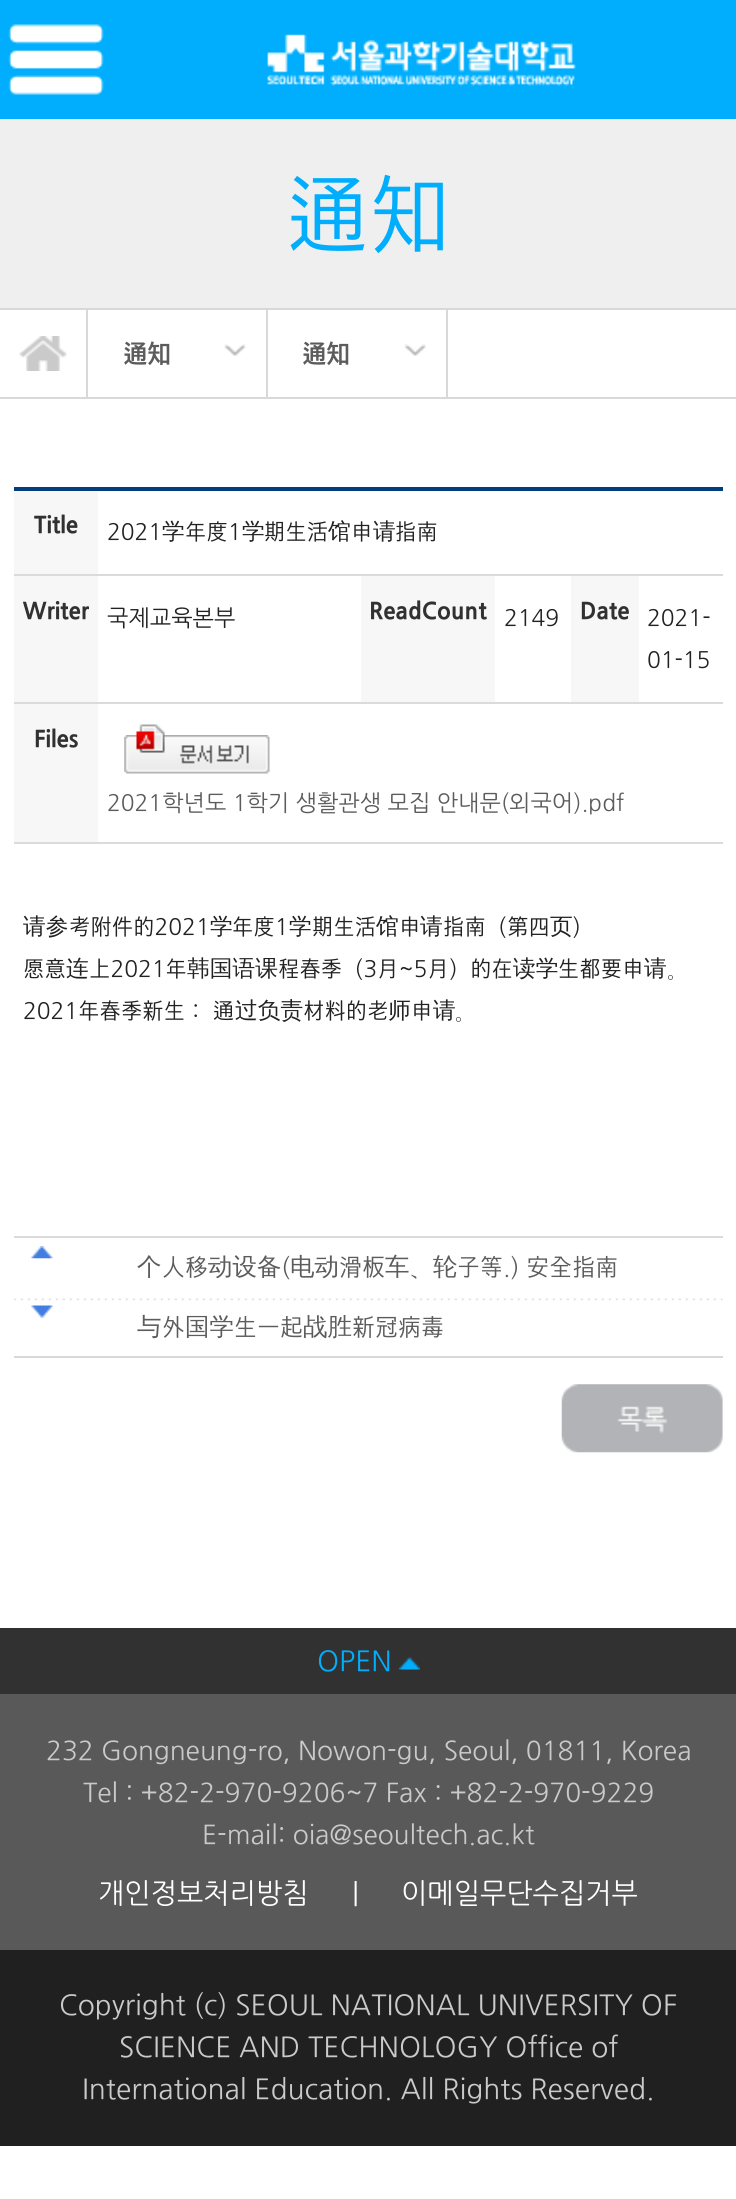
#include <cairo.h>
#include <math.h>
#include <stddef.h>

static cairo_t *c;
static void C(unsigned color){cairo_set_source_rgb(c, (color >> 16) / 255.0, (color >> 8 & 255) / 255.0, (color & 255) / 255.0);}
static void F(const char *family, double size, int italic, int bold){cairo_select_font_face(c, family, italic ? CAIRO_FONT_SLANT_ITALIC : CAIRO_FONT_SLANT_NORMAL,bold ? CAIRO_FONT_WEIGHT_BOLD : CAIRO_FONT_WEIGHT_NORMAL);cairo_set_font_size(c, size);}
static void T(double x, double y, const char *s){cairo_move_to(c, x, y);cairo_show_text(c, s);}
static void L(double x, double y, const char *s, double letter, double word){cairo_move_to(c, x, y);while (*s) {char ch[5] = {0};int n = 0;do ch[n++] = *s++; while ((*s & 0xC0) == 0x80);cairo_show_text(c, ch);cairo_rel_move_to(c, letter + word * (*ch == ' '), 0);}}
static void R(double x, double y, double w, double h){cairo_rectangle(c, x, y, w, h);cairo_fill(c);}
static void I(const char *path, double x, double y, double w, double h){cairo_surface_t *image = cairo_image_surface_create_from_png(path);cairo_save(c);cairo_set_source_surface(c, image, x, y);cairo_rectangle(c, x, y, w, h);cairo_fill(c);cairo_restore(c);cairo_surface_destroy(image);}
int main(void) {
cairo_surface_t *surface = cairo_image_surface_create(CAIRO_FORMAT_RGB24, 736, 2199);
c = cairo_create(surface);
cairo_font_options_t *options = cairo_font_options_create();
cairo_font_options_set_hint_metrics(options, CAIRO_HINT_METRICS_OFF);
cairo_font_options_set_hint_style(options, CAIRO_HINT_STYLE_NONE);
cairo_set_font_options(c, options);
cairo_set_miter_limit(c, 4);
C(0xffffff);
cairo_paint(c);
C(0x00aefd);
R(0,0,736,119);
I("1.png",8,24,96,71);
I("2.png",267,34,309,52);
C(0xefefef);
R(0,119,736,189);
F("NanumGothic",88,0,0);
C(0x00aefd);
T(286,243,"通知");
C(0xd8d8d8);
R(0,308,736,2);
R(0,397,736,2);
R(86,310,2,87);
I("3.png",19,336,48,35);
I("4.png",224,344,22,12);
R(266,310,2,87);
F("NanumGothic",26.25,0,1);
C(0x5c5c5c);
L(123,362,"通知",-1,0);
I("5.png",404,344,22,12);
C(0xd8d8d8);
R(446,310,2,87);
C(0x5c5c5c);
L(302,362,"通知",-1,0);
C(0x003e7e);
R(14,487,709,4);
C(0xf7f7f7);
R(14,491,84,83);
F("NanumGothic ExtraBold",22.75,0,0);
C(0x313131);
T(34,532,"Title");
C(0xdbdbdb);
R(14,574,709,2);
F("NanumGothic",22.75,0,0);
C(0x222222);
T(107,539,"2021");
F("WenQuanYi Zen Hei Medium",22.75,0,0);
T(162,539,"学");
F("NanumGothic",22.75,0,0);
T(185,539,"年度1");
F("WenQuanYi Zen Hei Medium",22.75,0,0);
T(242,539,"学");
F("NanumGothic",22.75,0,0);
T(264,539,"期生活");
F("WenQuanYi Zen Hei Medium",22.75,0,0);
T(328,539,"馆");
F("NanumGothic",22.75,0,0);
T(351,539,"申");
F("WenQuanYi Zen Hei Medium",22.75,0,0);
T(373,539,"请");
F("NanumGothic",22.75,0,0);
T(395,539,"指南");
C(0xf7f7f7);
R(14,576,84,126);
F("NanumGothic ExtraBold",22.75,0,0);
C(0x313131);
T(23,618,"Writer");
F("NanumGothic",22.75,0,0);
C(0x222222);
T(107,625,"국제교육본부");
C(0xf7f7f7);
R(361,576,134,126);
F("NanumGothic ExtraBold",22.75,0,0);
C(0x313131);
T(369,618,"ReadCount");
F("NanumGothic",22.75,0,0);
C(0x222222);
T(504,625,"2149");
C(0xf7f7f7);
R(571,576,68,126);
F("NanumGothic ExtraBold",22.75,0,0);
C(0x313131);
T(580,618,"Date");
C(0xdbdbdb);
R(14,702,709,2);
F("NanumGothic",22.75,0,0);
C(0x222222);
T(647,625,"2021-");
T(647,667,"01-15");
C(0xf7f7f7);
R(14,704,84,138);
F("NanumGothic ExtraBold",22.75,0,0);
C(0x313131);
T(34,746,"Files");
C(0xdbdbdb);
R(14,842,709,2);
I("6.png",124,735,146,39);
I("7.png",136,724,29,29);
F("NanumGothic",22.75,0,0);
C(0x5c5c5c);
T(107,810,"2021학년도 1학기 생활관생 모집 안내문(외국어).pdf");
C(0xdbdbdb);
R(14,1236,709,2);
F("WenQuanYi Zen Hei Medium",22.75,0,0);
C(0x222222);
T(23,934,"请参");
F("NanumGothic",22.75,0,0);
T(69,934,"考附件的2021");
F("WenQuanYi Zen Hei Medium",22.75,0,0);
T(210,934,"学");
F("NanumGothic",22.75,0,0);
T(232,934,"年度1");
F("WenQuanYi Zen Hei Medium",22.75,0,0);
T(289,934,"学");
F("NanumGothic",22.75,0,0);
T(312,934,"期生活");
F("WenQuanYi Zen Hei Medium",22.75,0,0);
T(376,934,"馆");
F("NanumGothic",22.75,0,0);
T(399,934,"申");
F("WenQuanYi Zen Hei Medium",22.75,0,0);
T(420,934,"请");
F("NanumGothic",22.75,0,0);
T(443,934,"指南（第四");
F("WenQuanYi Zen Hei Medium",22.75,0,0);
T(550,934,"页");
F("NanumGothic",22.75,0,0);
T(572,934,"）");
T(23,976,"愿意");
F("WenQuanYi Zen Hei Medium",22.75,0,0);
T(66,976,"连");
F("NanumGothic",22.75,0,0);
T(89,976,"上2021年");
F("WenQuanYi Zen Hei Medium",22.75,0,0);
T(187,976,"韩国语课");
F("NanumGothic",22.75,0,0);
T(278,976,"程春季（3月~5月）的在");
F("WenQuanYi Zen Hei Medium",22.75,0,0);
T(513,976,"读学");
F("NanumGothic",22.75,0,0);
T(558,976,"生都要申");
F("WenQuanYi Zen Hei Medium",22.75,0,0);
T(644,976,"请");
F("NanumGothic",22.75,0,0);
T(667,976,"。");
T(23,1018,"2021年春季新生： 通");
F("WenQuanYi Zen Hei Medium",22.75,0,0);
T(235,1018,"过负责");
F("NanumGothic",22.75,0,0);
T(303,1018,"材料的老");
F("WenQuanYi Zen Hei Medium",22.75,0,0);
T(388,1018,"师");
F("NanumGothic",22.75,0,0);
T(411,1018,"申");
F("WenQuanYi Zen Hei Medium",22.75,0,0);
T(433,1018,"请");
F("NanumGothic",22.75,0,0);
T(455,1018,"。");
I("8.png",14,1298,709,3);
C(0xd9d9d9);
R(14,1356,709,2);
I("9.png",31,1246,22,13);
F("WenQuanYi Zen Hei Medium",24.5,0,0);
C(0x5c5c5c);
T(137,1275,"个");
F("NanumGothic",24.5,0,0);
T(162,1275,"人移");
F("WenQuanYi Zen Hei Medium",24.5,0,0);
T(208,1275,"动设备");
F("NanumGothic",24.5,0,0);
T(281,1275,"(");
F("WenQuanYi Zen Hei Medium",24.5,0,0);
T(290,1275,"电动");
F("NanumGothic",24.5,0,0);
T(339,1275,"滑板");
F("WenQuanYi Zen Hei Medium",24.5,0,0);
T(385,1275,"车");
F("NanumGothic",24.5,0,0);
T(410,1275,"、");
F("WenQuanYi Zen Hei Medium",24.5,0,0);
T(433,1275,"轮");
F("NanumGothic",24.5,0,0);
T(457,1275,"子等.) 安全指南");
I("10.png",31,1305,22,13);
F("WenQuanYi Zen Hei Medium",24.5,0,0);
T(137,1335,"与");
F("NanumGothic",24.5,0,0);
T(162,1335,"外");
F("WenQuanYi Zen Hei Medium",24.5,0,0);
T(185,1335,"国学");
F("NanumGothic",24.5,0,0);
T(234,1335,"生一起");
F("WenQuanYi Zen Hei Medium",24.5,0,0);
T(303,1335,"战胜");
F("NanumGothic",24.5,0,0);
T(352,1335,"新冠病毒");
I("11.png",561,1384,162,69);
C(0x313131);
R(0,1628,736,66);
F("NanumGothic",28,0,0);
C(0x00aefd);
T(317,1670,"OPEN");
I("12.png",399,1657,21,13);
C(0x202020);
R(0,1950,736,196);
C(0x595959);
R(0,1694,736,256);
F("NanumGothic",26.25,0,0);
C(0xcacaca);
T(46,1759,"232 Gongneung-ro, Nowon-gu, Seoul, 01811, Korea");
T(83,1801,"Tel : +82-2-970-9206~7 Fax : +82-2-970-9229");
T(202,1843,"E-mail: oia@seoultech.ac.kt");
F("NanumGothic",28,0,0);
C(0xffffff);
T(98,1902,"개인정보처리방침");
T(352,1902,"|");
T(401,1902,"이메일무단수집거부");
C(0xcacaca);
T(59,2014,"Copyright (c) SEOUL NATIONAL UNIVERSITY OF");
T(119,2056,"SCIENCE AND TECHNOLOGY Office of");
T(82,2098,"International Education. All Rights Reserved.");
cairo_surface_write_to_png(surface, "o.png");
cairo_font_options_destroy(options);
cairo_destroy(c);
cairo_surface_destroy(surface);
return 0;
}
